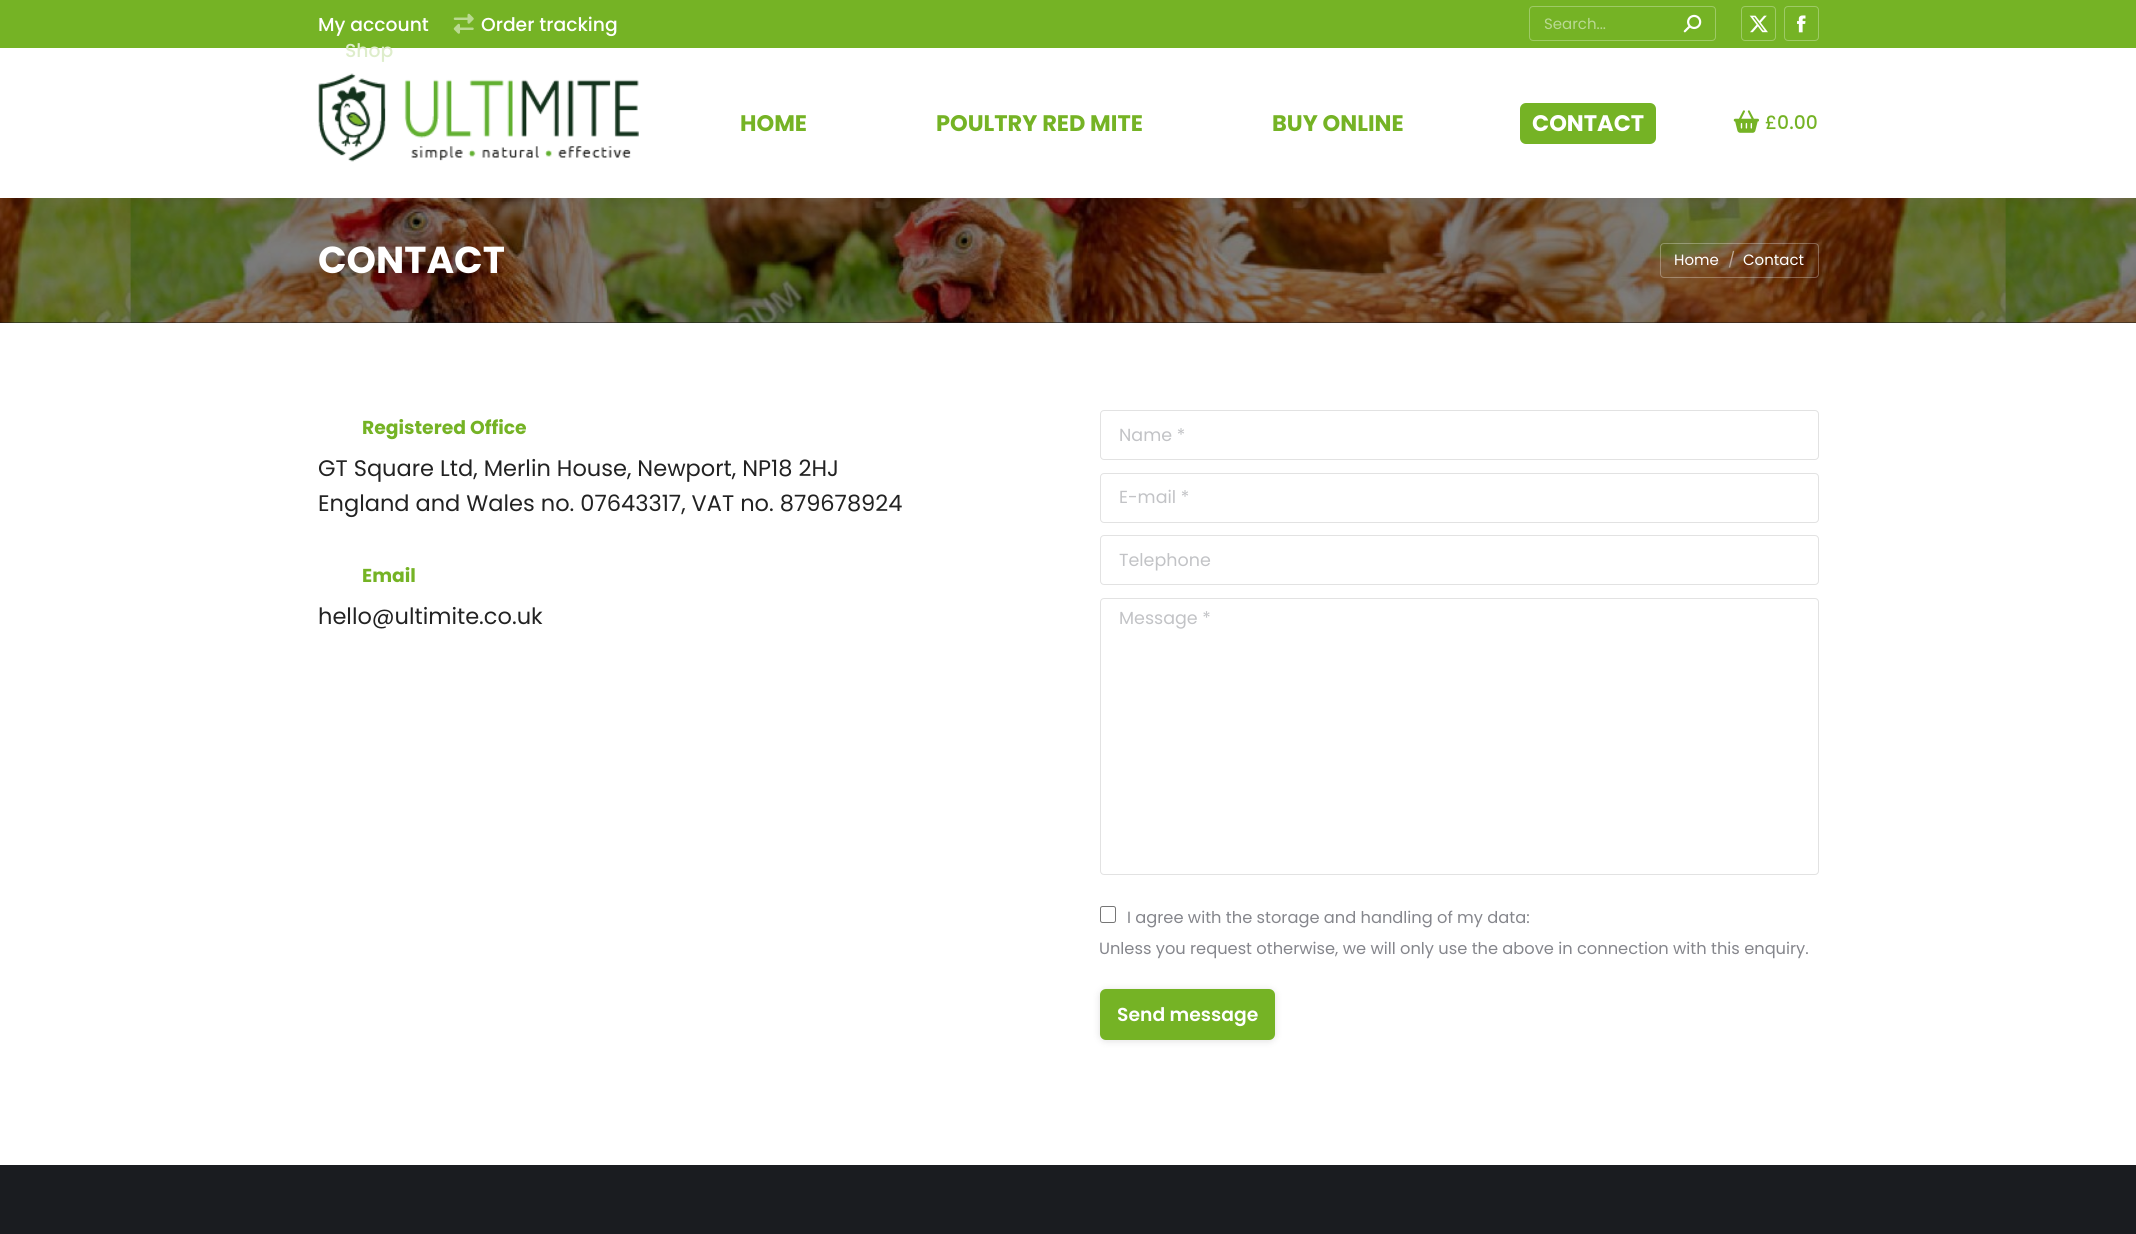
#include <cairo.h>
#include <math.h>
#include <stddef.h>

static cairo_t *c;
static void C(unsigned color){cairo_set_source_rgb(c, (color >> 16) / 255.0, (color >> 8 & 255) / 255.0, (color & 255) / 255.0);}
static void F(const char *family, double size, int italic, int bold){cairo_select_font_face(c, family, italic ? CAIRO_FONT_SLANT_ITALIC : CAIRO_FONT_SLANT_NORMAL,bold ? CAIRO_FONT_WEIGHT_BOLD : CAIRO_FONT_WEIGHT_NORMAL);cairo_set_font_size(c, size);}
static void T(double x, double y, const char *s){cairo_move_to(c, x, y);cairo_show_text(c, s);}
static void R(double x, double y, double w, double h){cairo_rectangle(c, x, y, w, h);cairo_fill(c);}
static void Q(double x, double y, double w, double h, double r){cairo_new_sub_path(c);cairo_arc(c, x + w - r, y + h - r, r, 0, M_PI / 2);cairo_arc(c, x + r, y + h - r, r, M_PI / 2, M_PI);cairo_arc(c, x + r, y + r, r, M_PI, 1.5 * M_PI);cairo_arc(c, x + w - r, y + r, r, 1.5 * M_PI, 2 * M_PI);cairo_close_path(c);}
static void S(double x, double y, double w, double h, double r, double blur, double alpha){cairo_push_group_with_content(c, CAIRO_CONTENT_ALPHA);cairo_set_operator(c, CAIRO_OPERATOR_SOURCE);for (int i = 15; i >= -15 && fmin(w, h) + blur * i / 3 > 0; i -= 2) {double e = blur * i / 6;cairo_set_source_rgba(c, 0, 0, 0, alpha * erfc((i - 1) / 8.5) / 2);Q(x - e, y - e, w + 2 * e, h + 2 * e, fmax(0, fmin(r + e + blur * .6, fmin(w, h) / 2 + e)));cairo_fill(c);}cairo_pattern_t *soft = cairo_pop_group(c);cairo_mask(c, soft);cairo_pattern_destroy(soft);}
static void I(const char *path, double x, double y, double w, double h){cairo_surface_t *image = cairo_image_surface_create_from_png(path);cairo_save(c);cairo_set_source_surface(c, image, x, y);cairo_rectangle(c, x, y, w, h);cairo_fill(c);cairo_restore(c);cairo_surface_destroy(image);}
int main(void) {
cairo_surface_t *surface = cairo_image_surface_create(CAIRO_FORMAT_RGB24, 2136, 1234);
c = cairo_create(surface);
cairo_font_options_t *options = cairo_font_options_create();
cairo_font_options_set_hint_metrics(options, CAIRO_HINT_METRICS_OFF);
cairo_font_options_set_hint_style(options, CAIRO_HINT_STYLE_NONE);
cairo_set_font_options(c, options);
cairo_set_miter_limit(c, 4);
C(0xffffff);
cairo_paint(c);
C(0x1a1a1a);
R(0,322,2136,1);
I("7.png",0,198,2136,125);
C(0x000000);
S(-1,-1,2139,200,0,9.5,.07);
C(0xffffff);
R(0,48,2136,150);
C(0x75b325);
R(0,0,2136,48);
F("Poppins Medium",18.75,0,0);
C(0xffffff);
T(318,31,"My account");
I("1.png",453,13,21,21);
T(481,31,"Order tracking");
C(0xdeedcb);
T(345,57,"Shop");
Q(1529.5,6.5,186,34,3.5);
C(0x9eca66);
cairo_set_line_width(c,1);
cairo_stroke(c);
F("Poppins",15,0,0);
C(0xbad992);
T(1544,29,"Search...");
I("2.png",1683,14,19,19);
Q(1741.5,6.5,34,34,3.5);
C(0x9eca66);
cairo_stroke(c);
I("3.png",1749,15,19,18);
Q(1784.5,6.5,34,34,3.5);
cairo_stroke(c);
I("4.png",1797,15,9,18);
I("5.png",318,73,321,89);
F("Poppins",22.5,0,1);
C(0x75b325);
T(740,131,"HOME");
T(936,131,"POULTRY RED MITE");
T(1272,131,"BUY ONLINE");
Q(1520,103,136,41,6);
cairo_fill(c);
C(0xffffff);
T(1532,131,"CONTACT");
I("6.png",1733,110,26,23);
F("Poppins Medium",18.75,0,0);
C(0x75b325);
T(1765,129,"£0.00");
F("Poppins",37.5,0,1);
C(0xffffff);
T(318,273,"CONTACT");
Q(1660.5,243.5,158,34,3.5);
cairo_set_source_rgba(c,1,1,1,0.3);
cairo_stroke(c);
F("Poppins",15,0,0);
C(0xffffff);
T(1674,265,"Home");
C(0xbca898);
T(1728,265,"/");
C(0xffffff);
T(1743,265,"Contact");
F("Poppins",18.75,0,1);
C(0x75b325);
T(362,434,"Registered Office");
F("Poppins",22.5,0,0);
C(0x222222);
T(318,476,"GT Square Ltd, Merlin House, Newport, NP18 2HJ");
T(318,511,"England and Wales no. 07643317, VAT no. 879678924");
F("Poppins",18.75,0,1);
C(0x75b325);
T(362,582,"Email");
F("Poppins",22.5,0,0);
C(0x222222);
T(318,624,"hello@ultimite.co.uk");
Q(1100.5,410.5,718,49,3.5);
C(0xe2e2e2);
cairo_stroke(c);
F("Poppins",17.5,0,0);
C(0xc2c3c6);
T(1119,441,"Name *");
Q(1100.5,473.5,718,49,3.5);
C(0xe2e2e2);
cairo_stroke(c);
C(0xc2c3c6);
T(1119,503,"E-mail *");
Q(1100.5,535.5,718,49,3.5);
C(0xe2e2e2);
cairo_stroke(c);
C(0xc2c3c6);
T(1119,566,"Telephone");
Q(1100.5,598.5,718,276,3.5);
C(0xe2e2e2);
cairo_stroke(c);
C(0xc2c3c6);
T(1119,624,"Message *");
Q(1100.5,906.5,15,16,2);
C(0x767676);
cairo_stroke(c);
F("Poppins",16.25,0,0);
C(0x85868c);
T(1127,923,"I agree with the storage and handling of my data:");
T(1099,954,"Unless you request otherwise, we will only use the above in connection with this enquiry.");
C(0x000000);
S(1100,990,175,51,6,4,.12);
C(0x75b325);
Q(1100,989,175,51,6);
cairo_fill(c);
F("Poppins SemiBold",18.75,0,0);
C(0xffffff);
T(1117,1021,"Send message");
C(0x1a1c20);
R(0,1165,2136,69);
cairo_surface_write_to_png(surface, "o.png");
cairo_font_options_destroy(options);
cairo_destroy(c);
cairo_surface_destroy(surface);
return 0;
}
